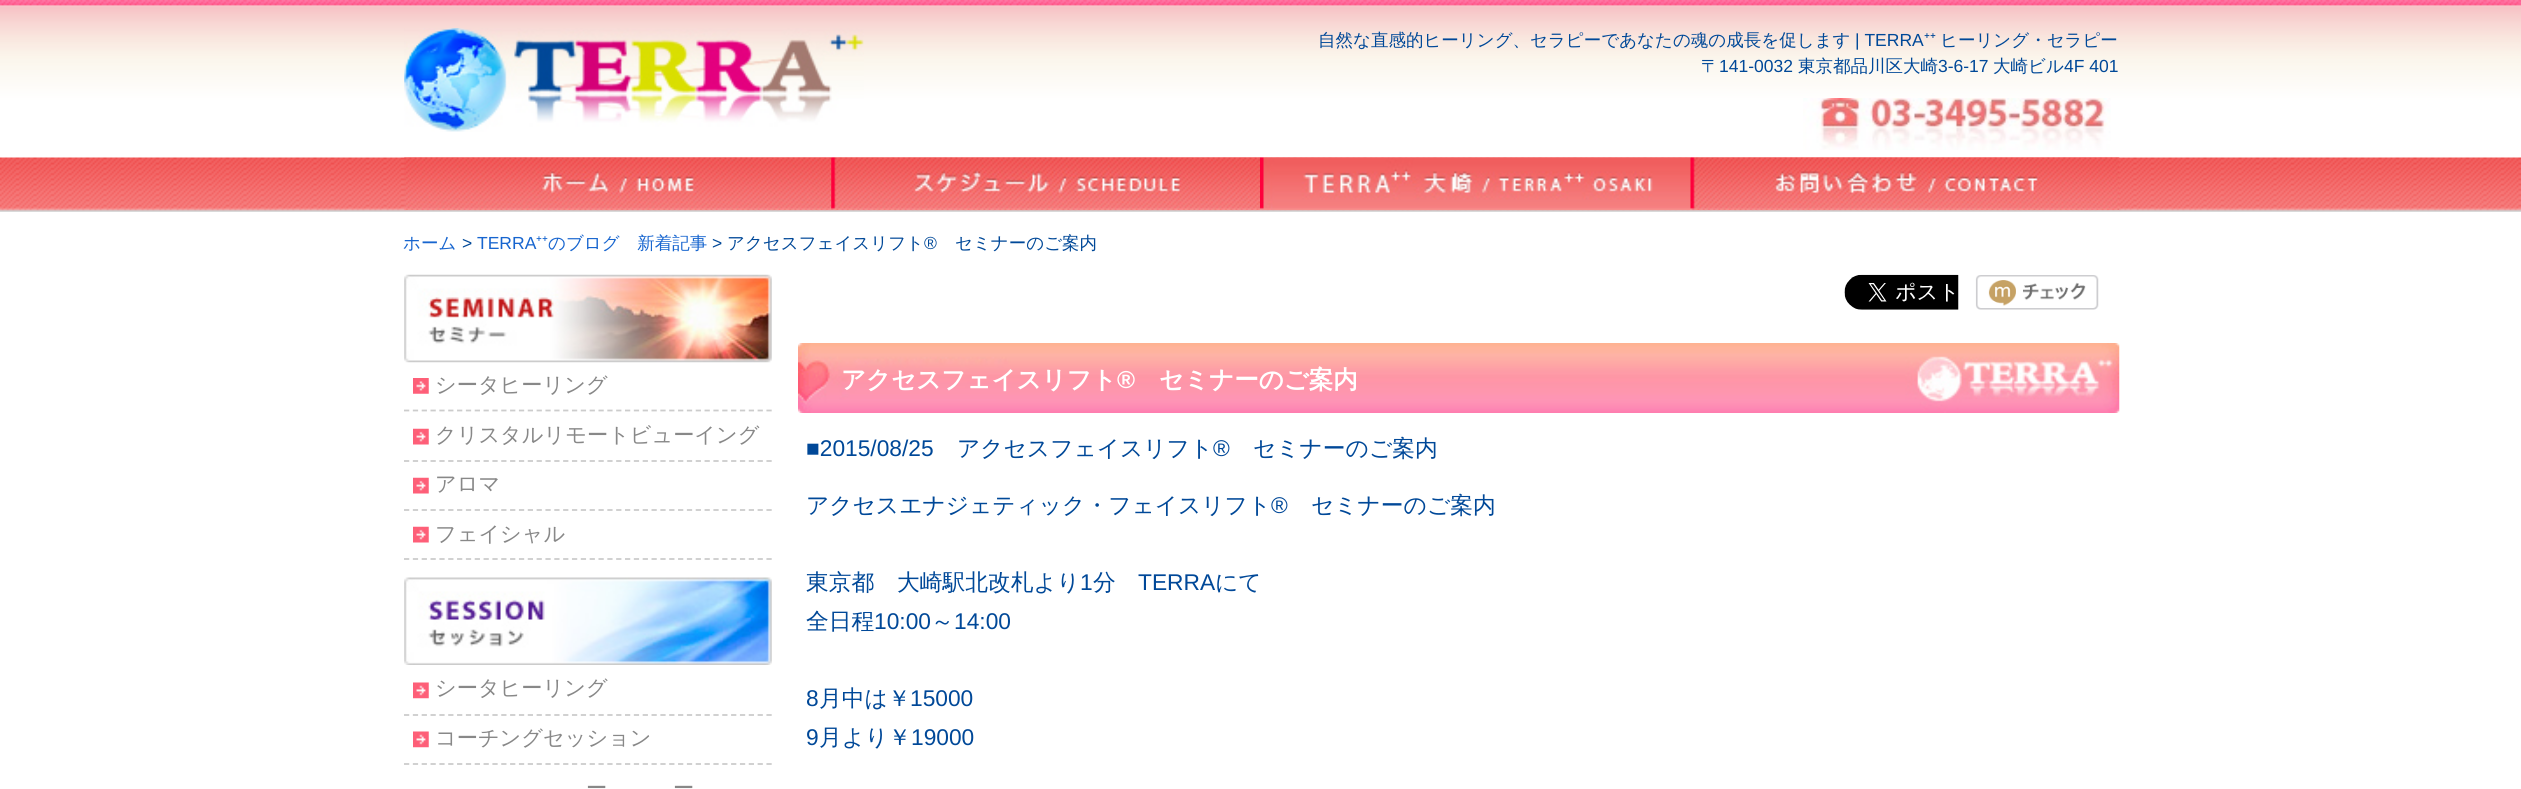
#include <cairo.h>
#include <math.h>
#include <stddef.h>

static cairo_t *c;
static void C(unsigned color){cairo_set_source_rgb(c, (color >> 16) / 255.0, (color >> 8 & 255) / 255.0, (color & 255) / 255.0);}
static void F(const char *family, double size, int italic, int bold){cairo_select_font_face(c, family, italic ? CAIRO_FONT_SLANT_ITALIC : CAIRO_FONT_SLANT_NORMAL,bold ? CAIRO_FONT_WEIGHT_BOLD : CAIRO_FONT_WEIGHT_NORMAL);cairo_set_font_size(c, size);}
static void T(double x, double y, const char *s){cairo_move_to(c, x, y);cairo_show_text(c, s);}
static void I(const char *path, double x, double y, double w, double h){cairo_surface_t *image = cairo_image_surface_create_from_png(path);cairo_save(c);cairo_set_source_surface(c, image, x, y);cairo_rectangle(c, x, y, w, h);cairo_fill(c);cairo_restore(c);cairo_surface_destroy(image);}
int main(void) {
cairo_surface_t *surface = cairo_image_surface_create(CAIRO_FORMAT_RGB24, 2521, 789);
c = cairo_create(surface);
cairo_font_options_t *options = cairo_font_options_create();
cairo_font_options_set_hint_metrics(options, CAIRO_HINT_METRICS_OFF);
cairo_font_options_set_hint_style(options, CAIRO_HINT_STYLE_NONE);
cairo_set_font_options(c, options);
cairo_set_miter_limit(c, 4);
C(0xffffff);
cairo_paint(c);
I("1.png",0,0,2521,212);
I("2.png",404,28,460,104);
F("WenQuanYi Zen Hei Medium",17.5,0,0);
C(0x004898);
T(1318,46,"自然な直感的ヒーリング、セラピーであなたの魂の成長を促します");
F("Liberation Sans",17.5,0,0);
T(1855,46,"| TERRA");
F("Noto Sans",17.5,0,0);
T(1924,46,"⁺⁺");
F("WenQuanYi Zen Hei Medium",17.5,0,0);
T(1940,46,"ヒーリング・セラピー");
T(1701,72,"〒");
F("Liberation Sans",17.5,0,0);
T(1719,72,"141-0032");
F("WenQuanYi Zen Hei Medium",17.5,0,0);
T(1798,72,"東京都品川区大崎");
F("Liberation Sans",17.5,0,0);
T(1938,72,"3-6-17");
F("WenQuanYi Zen Hei Medium",17.5,0,0);
T(1993,72,"大崎ビル");
F("Liberation Sans",17.5,0,0);
T(2064,72,"4F 401");
I("3.png",1803,98,308,52);
I("4.png",404,157,428,53);
I("5.png",831,157,429,53);
I("6.png",1260,157,431,53);
I("7.png",1690,157,430,53);
F("WenQuanYi Zen Hei Medium",17.5,0,0);
C(0x1765cf);
T(403,249,"ホーム");
F("Liberation Sans",17.5,0,0);
C(0x004898);
T(462,249,">");
C(0x1765cf);
T(477,249,"TERRA");
F("Noto Sans",17.5,0,0);
T(536,249,"⁺⁺");
F("WenQuanYi Zen Hei Medium",17.5,0,0);
T(548,249,"のブログ　新着記事");
F("Liberation Sans",17.5,0,0);
C(0x004898);
T(712,249,">");
F("WenQuanYi Zen Hei Medium",17.5,0,0);
T(727,249,"アクセスフェイスリフト");
F("Liberation Sans",17.5,0,0);
T(924,249,"®");
F("WenQuanYi Zen Hei Medium",17.5,0,0);
T(955,249,"セミナーのご案内");
I("8.png",404,274,368,89);
I("9.png",413,378,16,16);
cairo_new_path(c);
cairo_move_to(c,404,410.5);
cairo_line_to(c,772,410.5);
C(0xcccccc);
cairo_set_line_width(c,1.8);
cairo_set_dash(c,(double[]){5.25,3.59},2,0);
cairo_stroke(c);
F("WenQuanYi Zen Hei Medium",21.2,0,0);
C(0x888888);
T(435,392,"シータヒーリング");
I("10.png",413,428,16,17);
cairo_new_path(c);
cairo_move_to(c,404,461);
cairo_line_to(c,772,461);
C(0xcccccc);
cairo_stroke(c);
C(0x888888);
T(435,442,"クリスタルリモートビューイング");
I("10.png",413,477,16,17);
cairo_new_path(c);
cairo_move_to(c,404,510);
cairo_line_to(c,772,510);
C(0xcccccc);
cairo_stroke(c);
C(0x888888);
T(435,491,"アロマ");
I("10.png",413,526,16,17);
cairo_new_path(c);
cairo_move_to(c,404,559);
cairo_line_to(c,772,559);
C(0xcccccc);
cairo_stroke(c);
C(0x888888);
T(435,541,"フェイシャル");
I("11.png",404,577,368,88);
I("12.png",413,682,16,17);
cairo_new_path(c);
cairo_move_to(c,404,715);
cairo_line_to(c,772,715);
C(0xcccccc);
cairo_stroke(c);
C(0x888888);
T(435,695,"シータヒーリング");
I("12.png",413,731,16,17);
cairo_new_path(c);
cairo_move_to(c,404,764);
cairo_line_to(c,772,764);
C(0xcccccc);
cairo_stroke(c);
C(0x888888);
T(435,745,"コーチングセッション");
T(586,795,"ー");
T(673,795,"ー");
I("13.png",1844,274,115,36);
I("14.png",1975,275,124,35);
I("15.png",798,343,1322,70);
F("WenQuanYi Zen Hei",24.5,0,1);
C(0xffffff);
T(841,388,"アクセスフェイスリフト");
F("Liberation Sans",24.5,0,1);
T(1117,388,"®");
F("WenQuanYi Zen Hei",24.5,0,1);
T(1159,388,"セミナーのご案内");
F("Liberation Sans",22.75,0,0);
C(0x004898);
T(806,456,"■2015/08/25");
F("WenQuanYi Zen Hei Medium",22.75,0,0);
T(957,456,"アクセスフェイスリフト");
F("Liberation Sans",22.75,0,0);
T(1213,456,"®");
F("WenQuanYi Zen Hei Medium",22.75,0,0);
T(1253,456,"セミナーのご案内");
T(806,513,"アクセスエナジェティック・フェイスリフト");
F("Liberation Sans",22.75,0,0);
T(1271,513,"®");
F("WenQuanYi Zen Hei Medium",22.75,0,0);
T(1311,513,"セミナーのご案内");
T(806,590,"東京都　大崎駅北改札より");
F("Liberation Sans",22.75,0,0);
T(1080,590,"1");
F("WenQuanYi Zen Hei Medium",22.75,0,0);
T(1093,590,"分");
F("Liberation Sans",22.75,0,0);
T(1138,590,"TERRA");
F("WenQuanYi Zen Hei Medium",22.75,0,0);
T(1215,590,"にて");
T(806,629,"全日程");
F("Liberation Sans",22.75,0,0);
T(874,629,"10:00");
F("WenQuanYi Zen Hei Medium",22.75,0,0);
T(931,629,"～");
F("Liberation Sans",22.75,0,0);
T(954,629,"14:00");
T(806,706,"8");
F("WenQuanYi Zen Hei Medium",22.75,0,0);
T(819,706,"月中は￥");
F("Liberation Sans",22.75,0,0);
T(910,706,"15000");
T(806,745,"9");
F("WenQuanYi Zen Hei Medium",22.75,0,0);
T(819,745,"月より￥");
F("Liberation Sans",22.75,0,0);
T(911,745,"19000");
cairo_surface_write_to_png(surface, "o.png");
cairo_font_options_destroy(options);
cairo_destroy(c);
cairo_surface_destroy(surface);
return 0;
}
